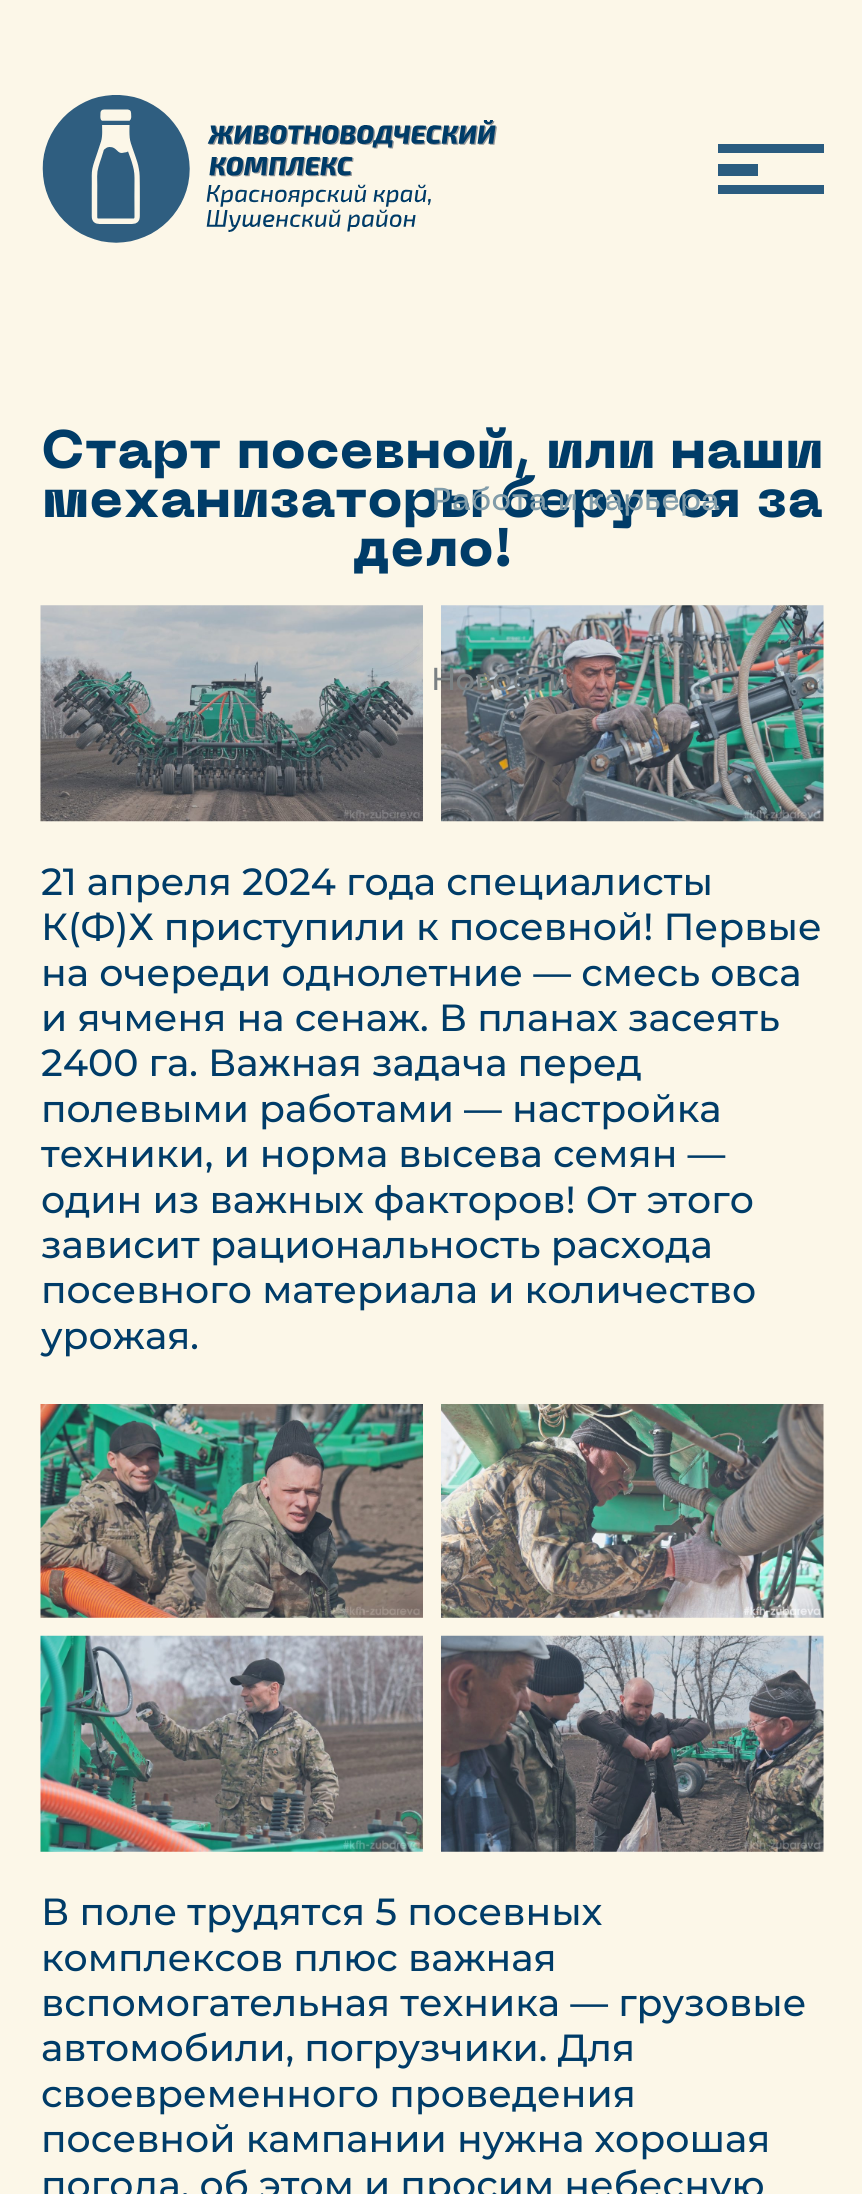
#include <cairo.h>
#include <math.h>
#include <stddef.h>

static cairo_t *c;
static void C(unsigned color){cairo_set_source_rgb(c, (color >> 16) / 255.0, (color >> 8 & 255) / 255.0, (color & 255) / 255.0);}
static void F(const char *family, double size, int italic, int bold){cairo_select_font_face(c, family, italic ? CAIRO_FONT_SLANT_ITALIC : CAIRO_FONT_SLANT_NORMAL,bold ? CAIRO_FONT_WEIGHT_BOLD : CAIRO_FONT_WEIGHT_NORMAL);cairo_set_font_size(c, size);}
static void T(double x, double y, const char *s){cairo_move_to(c, x, y);cairo_show_text(c, s);}
static void R(double x, double y, double w, double h){cairo_rectangle(c, x, y, w, h);cairo_fill(c);}
static void I(const char *path, double x, double y, double w, double h){cairo_surface_t *image = cairo_image_surface_create_from_png(path);cairo_save(c);cairo_set_source_surface(c, image, x, y);cairo_rectangle(c, x, y, w, h);cairo_fill(c);cairo_restore(c);cairo_surface_destroy(image);}
int main(void) {
cairo_surface_t *surface = cairo_image_surface_create(CAIRO_FORMAT_RGB24, 862, 2194);
c = cairo_create(surface);
cairo_font_options_t *options = cairo_font_options_create();
cairo_font_options_set_hint_metrics(options, CAIRO_HINT_METRICS_OFF);
cairo_font_options_set_hint_style(options, CAIRO_HINT_STYLE_NONE);
cairo_set_font_options(c, options);
cairo_set_miter_limit(c, 4);
C(0xfcf7e8);
cairo_paint(c);
F("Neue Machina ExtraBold",54,0,0);
C(0x003c68);
T(41,468,"Старт посевной, или наши");
T(42,517,"механизаторы берутся за");
T(352,566,"дело!");
I("1.png",40,605,383,217);
I("2.png",441,605,383,217);
F("Montserrat Medium",37.8,0,0);
T(41,895,"21 апреля 2024 года специалисты");
T(41,940,"К(Ф)Х приступили к посевной! Первые");
T(41,986,"на очереди однолетние — смесь овса");
T(41,1031,"и ячменя на сенаж. В планах засеять");
T(41,1076,"2400 га. Важная задача перед");
T(41,1122,"полевыми работами — настройка");
T(41,1167,"техники, и норма высева семян —");
T(41,1213,"один из важных факторов! От этого");
T(41,1258,"зависит рациональность расхода");
T(41,1303,"посевного материала и количество");
T(41,1349,"урожая.");
I("3.png",40,1404,383,214);
I("4.png",441,1404,383,214);
I("5.png",40,1635,383,217);
I("6.png",441,1635,383,217);
T(41,1925,"В поле трудятся 5 посевных");
T(41,1971,"комплексов плюс важная");
T(41,2016,"вспомогательная техника — грузовые");
T(41,2061,"автомобили, погрузчики. Для");
T(41,2107,"своевременного проведения");
T(41,2152,"посевной кампании нужна хорошая");
T(41,2198,"погода, об этом и просим небесную");
I("7.png",42,95,455,148);
C(0x2a5c80);
R(718,144,106,9);
R(718,164,40,12);
R(718,185,106,9);
F("Neue Machina Medium",31.5,0,0);
C(0x819ca9);
T(432,510,"Работа и карьера");
C(0x7b8183);
T(432,690,"Новости");
cairo_surface_write_to_png(surface, "o.png");
cairo_font_options_destroy(options);
cairo_destroy(c);
cairo_surface_destroy(surface);
return 0;
}
